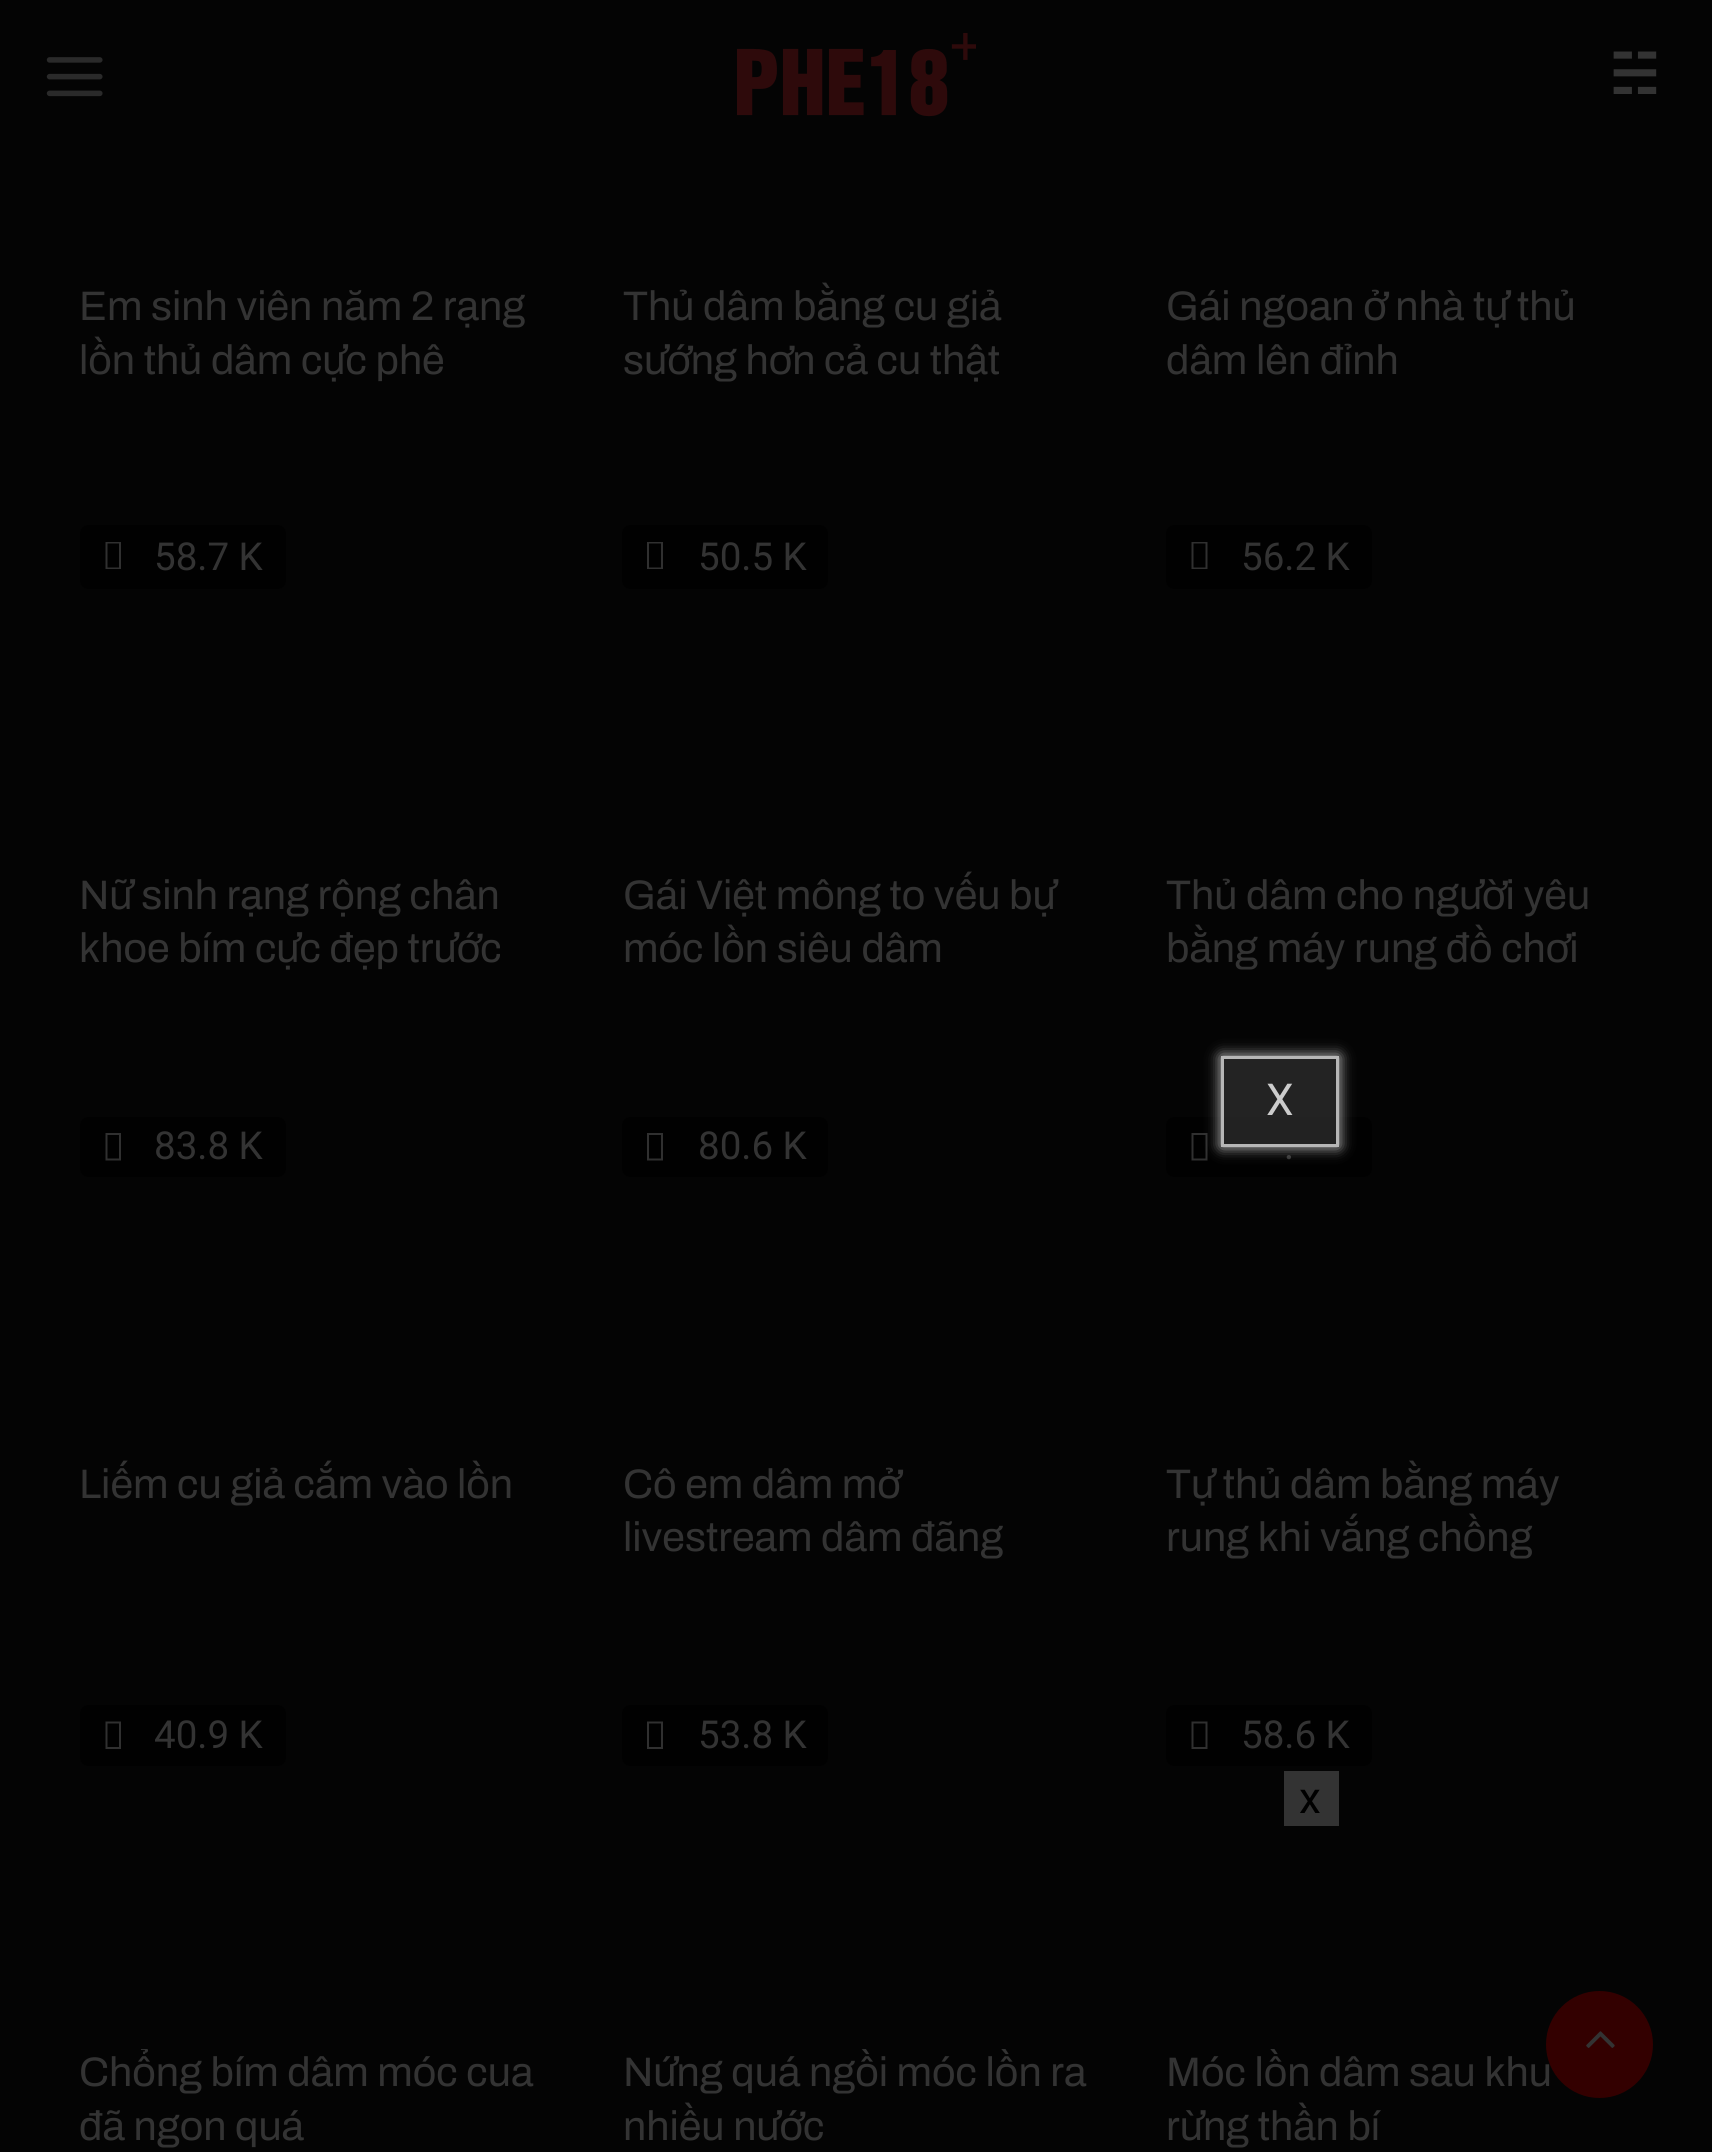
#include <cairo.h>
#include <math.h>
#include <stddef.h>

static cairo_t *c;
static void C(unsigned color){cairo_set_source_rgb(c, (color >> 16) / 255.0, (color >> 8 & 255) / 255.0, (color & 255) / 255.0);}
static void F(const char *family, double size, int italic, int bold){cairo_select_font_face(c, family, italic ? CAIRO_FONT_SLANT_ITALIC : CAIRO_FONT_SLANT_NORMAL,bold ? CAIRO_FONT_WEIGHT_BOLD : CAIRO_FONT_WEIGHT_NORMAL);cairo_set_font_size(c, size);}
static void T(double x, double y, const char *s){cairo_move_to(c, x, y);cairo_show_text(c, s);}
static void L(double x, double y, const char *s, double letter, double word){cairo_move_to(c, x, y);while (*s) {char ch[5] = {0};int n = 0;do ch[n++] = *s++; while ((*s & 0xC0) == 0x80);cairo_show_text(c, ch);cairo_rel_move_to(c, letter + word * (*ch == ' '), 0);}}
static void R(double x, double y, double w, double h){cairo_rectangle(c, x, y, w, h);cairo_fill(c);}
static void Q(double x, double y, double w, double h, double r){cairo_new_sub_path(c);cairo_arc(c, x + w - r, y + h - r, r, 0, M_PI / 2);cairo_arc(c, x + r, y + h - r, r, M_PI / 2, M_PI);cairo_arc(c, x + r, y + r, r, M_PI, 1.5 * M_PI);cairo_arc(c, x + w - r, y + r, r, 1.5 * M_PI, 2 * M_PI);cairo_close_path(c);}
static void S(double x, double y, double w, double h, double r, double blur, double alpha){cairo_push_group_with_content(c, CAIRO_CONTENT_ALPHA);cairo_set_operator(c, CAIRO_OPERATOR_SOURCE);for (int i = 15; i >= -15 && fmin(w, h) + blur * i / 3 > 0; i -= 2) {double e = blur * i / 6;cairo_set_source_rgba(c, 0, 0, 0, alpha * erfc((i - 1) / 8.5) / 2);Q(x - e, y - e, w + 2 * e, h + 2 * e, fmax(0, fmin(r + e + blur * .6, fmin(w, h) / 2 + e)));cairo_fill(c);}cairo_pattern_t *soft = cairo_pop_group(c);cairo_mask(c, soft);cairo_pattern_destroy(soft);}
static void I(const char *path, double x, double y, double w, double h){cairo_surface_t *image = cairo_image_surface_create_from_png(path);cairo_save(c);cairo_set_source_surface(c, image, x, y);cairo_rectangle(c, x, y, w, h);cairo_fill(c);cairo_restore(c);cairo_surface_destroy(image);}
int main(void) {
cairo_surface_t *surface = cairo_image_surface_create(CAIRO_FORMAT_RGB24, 1712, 2152);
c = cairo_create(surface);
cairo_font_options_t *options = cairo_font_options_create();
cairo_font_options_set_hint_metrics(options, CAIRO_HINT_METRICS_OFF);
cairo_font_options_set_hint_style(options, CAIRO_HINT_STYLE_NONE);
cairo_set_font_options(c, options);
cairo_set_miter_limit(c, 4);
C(0x040404);
cairo_paint(c);
I("1.png",46,57,57,40);
I("2.png",737,33,239,84);
F("DejaVu Sans",56,0,1);
C(0x333333);
L(1609,94,"☵",2,0);
F("Archivo",41.25,0,0);
T(79,320,"Em sinh viên năm 2 rạng");
T(79,374,"lồn thủ dâm cực phê");
T(623,320,"Thủ dâm bằng cu giả");
T(623,374,"sướng hơn cả cu thật");
T(1166,320,"Gái ngoan ở nhà tự thủ");
T(1166,374,"dâm lên đỉnh");
C(0x010101);
Q(80,525,206,64,8);
cairo_fill(c);
C(0x303030);
cairo_new_path(c);
cairo_move_to(c,105.5,569);
cairo_line_to(c,105.5,542);
cairo_line_to(c,121,542);
cairo_line_to(c,121,569);
cairo_close_path(c);
cairo_move_to(c,107.5,567.5);
cairo_line_to(c,119,567.5);
cairo_line_to(c,119,543.5);
cairo_line_to(c,107.5,543.5);
cairo_close_path(c);
cairo_fill(c);
F("Roboto",38.5,0,0);
C(0x333333);
T(154,570,"58.7 K");
F("Archivo",41.25,0,0);
T(79,909,"Nữ sinh rạng rộng chân");
T(79,962,"khoe bím cực đẹp trước");
C(0x010101);
Q(622,525,206,64,8);
cairo_fill(c);
C(0x303030);
cairo_new_path(c);
cairo_move_to(c,647,569);
cairo_line_to(c,647,542);
cairo_line_to(c,663,542);
cairo_line_to(c,663,569);
cairo_close_path(c);
cairo_move_to(c,649,567.5);
cairo_line_to(c,661,567.5);
cairo_line_to(c,661,543.5);
cairo_line_to(c,649,543.5);
cairo_close_path(c);
cairo_fill(c);
F("Roboto",38.5,0,0);
C(0x333333);
T(698,570,"50.5 K");
F("Archivo",41.25,0,0);
T(623,909,"Gái Việt mông to vếu bự");
T(623,962,"móc lồn siêu dâm");
C(0x010101);
Q(1166,525,206,64,8);
cairo_fill(c);
C(0x303030);
cairo_new_path(c);
cairo_move_to(c,1191.5,569);
cairo_line_to(c,1191.5,542);
cairo_line_to(c,1207.5,542);
cairo_line_to(c,1207.5,569);
cairo_close_path(c);
cairo_move_to(c,1193.5,567.5);
cairo_line_to(c,1205.5,567.5);
cairo_line_to(c,1205.5,543.5);
cairo_line_to(c,1193.5,543.5);
cairo_close_path(c);
cairo_fill(c);
F("Roboto",38.5,0,0);
C(0x333333);
T(1241,570,"56.2 K");
F("Archivo",41.25,0,0);
T(1166,909,"Thủ dâm cho người yêu");
T(1166,962,"bằng máy rung đồ chơi");
C(0x010101);
Q(80,1117,206,60,8);
cairo_fill(c);
C(0x303030);
cairo_new_path(c);
cairo_move_to(c,105.5,1160.5);
cairo_line_to(c,105.5,1133);
cairo_line_to(c,121,1133);
cairo_line_to(c,121,1160.5);
cairo_close_path(c);
cairo_move_to(c,107.5,1158.5);
cairo_line_to(c,119,1158.5);
cairo_line_to(c,119,1135);
cairo_line_to(c,107.5,1135);
cairo_close_path(c);
cairo_fill(c);
F("Roboto",38.5,0,0);
C(0x333333);
T(154,1159,"83.8 K");
F("Archivo",41.25,0,0);
T(79,1498,"Liếm cu giả cắm vào lồn");
C(0x010101);
Q(622,1117,206,60,8);
cairo_fill(c);
C(0x303030);
cairo_new_path(c);
cairo_move_to(c,647,1160.5);
cairo_line_to(c,647,1133);
cairo_line_to(c,663,1133);
cairo_line_to(c,663,1160.5);
cairo_close_path(c);
cairo_move_to(c,649,1158.5);
cairo_line_to(c,661,1158.5);
cairo_line_to(c,661,1135);
cairo_line_to(c,649,1135);
cairo_close_path(c);
cairo_fill(c);
F("Roboto",38.5,0,0);
C(0x333333);
T(698,1159,"80.6 K");
F("Archivo",41.25,0,0);
T(623,1498,"Cô em dâm mở");
T(623,1551,"livestream dâm đãng");
C(0x010101);
Q(1166,1117,206,60,8);
cairo_fill(c);
C(0x303030);
cairo_new_path(c);
cairo_move_to(c,1191.5,1160.5);
cairo_line_to(c,1191.5,1133);
cairo_line_to(c,1207.5,1133);
cairo_line_to(c,1207.5,1160.5);
cairo_close_path(c);
cairo_move_to(c,1193.5,1158.5);
cairo_line_to(c,1205.5,1158.5);
cairo_line_to(c,1205.5,1135);
cairo_line_to(c,1193.5,1135);
cairo_close_path(c);
cairo_fill(c);
F("Roboto",38.5,0,0);
C(0x333333);
T(1284,1159,".");
F("Archivo",41.25,0,0);
T(1166,1498,"Tự thủ dâm bằng máy");
T(1166,1551,"rung khi vắng chồng");
C(0x010101);
Q(80,1705,206,61,8);
cairo_fill(c);
C(0x303030);
cairo_new_path(c);
cairo_move_to(c,105.5,1749);
cairo_line_to(c,105.5,1721.5);
cairo_line_to(c,121,1721.5);
cairo_line_to(c,121,1749);
cairo_close_path(c);
cairo_move_to(c,107.5,1747);
cairo_line_to(c,119,1747);
cairo_line_to(c,119,1723.5);
cairo_line_to(c,107.5,1723.5);
cairo_close_path(c);
cairo_fill(c);
F("Roboto",38.5,0,0);
C(0x333333);
T(154,1748,"40.9 K");
cairo_save(c);
cairo_rectangle(c,80,2049,467,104);
cairo_clip(c);
F("Archivo",41.25,0,0);
T(79,2086,"Chổng bím dâm móc cua");
cairo_restore(c);
F("Archivo",41.25,0,0);
T(79,2140,"đã ngon quá");
C(0x010101);
Q(622,1705,206,61,8);
cairo_fill(c);
C(0x303030);
cairo_new_path(c);
cairo_move_to(c,647,1749);
cairo_line_to(c,647,1721.5);
cairo_line_to(c,663,1721.5);
cairo_line_to(c,663,1749);
cairo_close_path(c);
cairo_move_to(c,649,1747);
cairo_line_to(c,661,1747);
cairo_line_to(c,661,1723.5);
cairo_line_to(c,649,1723.5);
cairo_close_path(c);
cairo_fill(c);
F("Roboto",38.5,0,0);
C(0x333333);
T(698,1748,"53.8 K");
cairo_save(c);
cairo_rectangle(c,622,2049,470,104);
cairo_clip(c);
F("Archivo",41.25,0,0);
T(623,2086,"Nứng quá ngồi móc lồn ra");
cairo_restore(c);
F("Archivo",41.25,0,0);
T(623,2140,"nhiều nước");
C(0x010101);
Q(1166,1705,206,61,8);
cairo_fill(c);
C(0x303030);
cairo_new_path(c);
cairo_move_to(c,1191.5,1749);
cairo_line_to(c,1191.5,1721.5);
cairo_line_to(c,1207.5,1721.5);
cairo_line_to(c,1207.5,1749);
cairo_close_path(c);
cairo_move_to(c,1193.5,1747);
cairo_line_to(c,1205.5,1747);
cairo_line_to(c,1205.5,1723.5);
cairo_line_to(c,1193.5,1723.5);
cairo_close_path(c);
cairo_fill(c);
F("Roboto",38.5,0,0);
C(0x333333);
T(1241,1748,"58.6 K");
cairo_save(c);
cairo_rectangle(c,1166,2049,468,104);
cairo_clip(c);
F("Archivo",41.25,0,0);
T(1166,2086,"Móc lồn dâm sau khu");
cairo_restore(c);
F("Archivo",41.25,0,0);
T(1166,2140,"rừng thần bí");
R(1284,1771,55,55);
F("Roboto",44,0,0);
C(0x000000);
T(1299,1813,"x");
C(0x330000);
cairo_new_path(c);
cairo_arc(c,1599.5,2044.5,50.5,0,2 * M_PI);
cairo_fill_preserve(c);
cairo_set_line_width(c,6);
cairo_stroke(c);
I("3.png",1586,2031,29,17);
cairo_save(c);
cairo_set_fill_rule(c,CAIRO_FILL_RULE_EVEN_ODD);
cairo_new_path(c);
cairo_move_to(c,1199,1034);
cairo_line_to(c,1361,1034);
cairo_line_to(c,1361,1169);
cairo_line_to(c,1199,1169);
cairo_close_path(c);
cairo_move_to(c,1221,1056);
cairo_line_to(c,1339,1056);
cairo_line_to(c,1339,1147);
cairo_line_to(c,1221,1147);
cairo_close_path(c);
cairo_clip(c);
C(0xffffff);
S(1221,1056,118,91,0,7,.8);
cairo_restore(c);
cairo_set_source_rgba(c,0.169,0.169,0.169,0.8);
R(1221,1056,118,91);
cairo_rectangle(c,1222.5,1057.5,115,88);
cairo_set_source_rgba(c,0.855,0.855,0.855,0.8);
cairo_set_line_width(c,3);
cairo_stroke(c);
C(0xcccccc);
T(1266,1115,"X");
cairo_surface_write_to_png(surface, "o.png");
cairo_font_options_destroy(options);
cairo_destroy(c);
cairo_surface_destroy(surface);
return 0;
}
